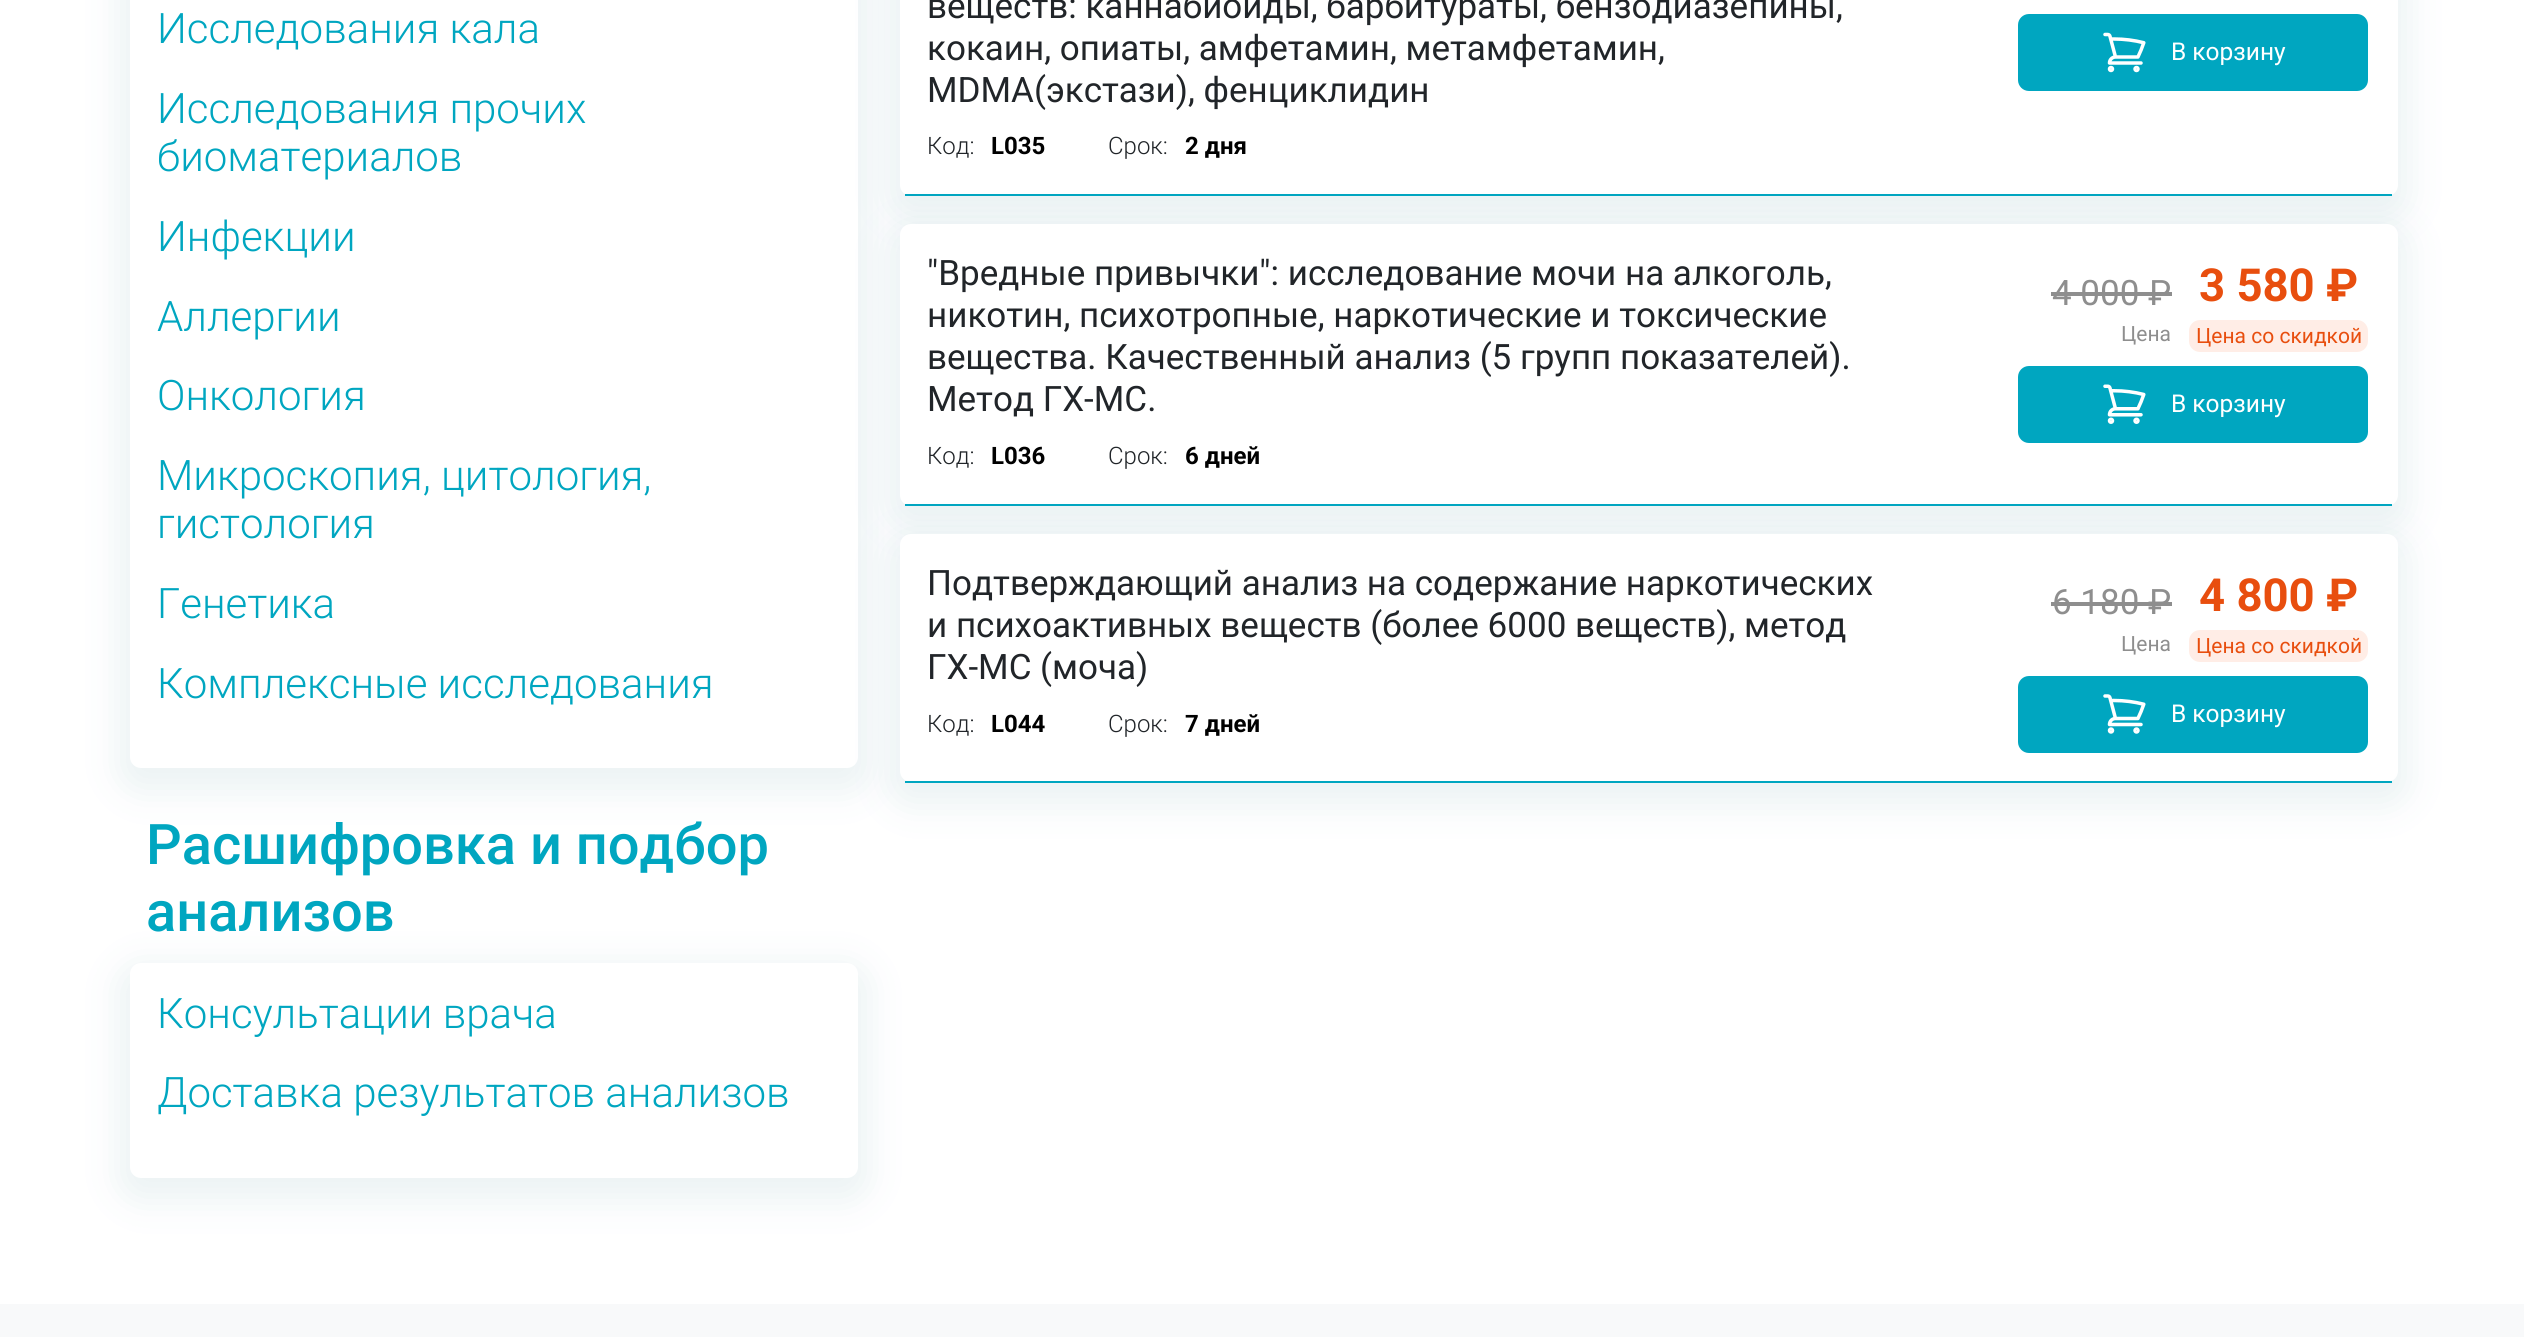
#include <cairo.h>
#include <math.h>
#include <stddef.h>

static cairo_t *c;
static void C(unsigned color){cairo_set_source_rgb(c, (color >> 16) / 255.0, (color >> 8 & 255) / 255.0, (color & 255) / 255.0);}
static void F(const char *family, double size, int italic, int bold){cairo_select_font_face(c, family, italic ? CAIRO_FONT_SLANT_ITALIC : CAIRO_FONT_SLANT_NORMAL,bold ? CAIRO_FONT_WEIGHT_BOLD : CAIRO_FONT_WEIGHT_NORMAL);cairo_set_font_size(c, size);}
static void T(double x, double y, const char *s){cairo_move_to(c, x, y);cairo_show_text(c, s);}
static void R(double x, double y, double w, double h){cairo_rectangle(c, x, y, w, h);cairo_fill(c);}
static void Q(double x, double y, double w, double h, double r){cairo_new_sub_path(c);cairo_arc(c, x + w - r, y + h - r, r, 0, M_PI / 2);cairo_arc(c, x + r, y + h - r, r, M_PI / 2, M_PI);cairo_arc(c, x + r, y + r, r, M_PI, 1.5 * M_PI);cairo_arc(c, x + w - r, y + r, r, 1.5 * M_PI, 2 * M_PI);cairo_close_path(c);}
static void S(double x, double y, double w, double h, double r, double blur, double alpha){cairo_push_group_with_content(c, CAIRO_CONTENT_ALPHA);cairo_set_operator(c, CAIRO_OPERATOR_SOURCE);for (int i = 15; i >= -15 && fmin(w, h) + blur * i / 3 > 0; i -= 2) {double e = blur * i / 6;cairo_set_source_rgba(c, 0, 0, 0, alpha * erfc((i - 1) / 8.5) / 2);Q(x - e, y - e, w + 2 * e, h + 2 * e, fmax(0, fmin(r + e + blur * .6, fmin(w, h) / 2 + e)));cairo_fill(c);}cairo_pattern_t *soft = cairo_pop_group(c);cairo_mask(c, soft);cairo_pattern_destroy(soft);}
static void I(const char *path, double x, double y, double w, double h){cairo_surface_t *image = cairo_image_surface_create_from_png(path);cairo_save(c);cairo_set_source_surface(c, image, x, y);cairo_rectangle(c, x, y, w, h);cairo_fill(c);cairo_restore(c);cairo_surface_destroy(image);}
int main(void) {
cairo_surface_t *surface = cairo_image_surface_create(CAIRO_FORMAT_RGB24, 2524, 1337);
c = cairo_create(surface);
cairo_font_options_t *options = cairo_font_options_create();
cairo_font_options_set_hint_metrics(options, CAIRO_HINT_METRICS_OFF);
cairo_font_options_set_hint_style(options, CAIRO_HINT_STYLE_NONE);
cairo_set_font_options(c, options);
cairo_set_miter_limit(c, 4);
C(0xffffff);
cairo_paint(c);
C(0x2c7884);
S(117,-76,753,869,23,17.5,.09);
C(0xffffff);
Q(130,-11,728,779,11);
cairo_fill(c);
F("Roboto Light",42,0,0);
C(0x00a6c0);
T(157,43,"Исследования кала");
T(157,123,"Исследования прочих");
T(157,171,"биоматериалов");
T(157,251,"Инфекции");
T(157,331,"Аллергии");
T(157,410,"Онкология");
T(157,490,"Микроскопия, цитология,");
T(157,538,"гистология");
T(157,618,"Генетика");
T(157,698,"Комплексные исследования");
F("Roboto Medium",56,0,0);
T(146,864,"Расшифровка и подбор");
T(146,931,"анализов");
C(0x2c7884);
S(117,963,753,239,23,17.5,.09);
C(0xffffff);
Q(130,963,728,215,11);
cairo_fill(c);
F("Roboto Light",42,0,0);
C(0x00a6c0);
T(157,1028,"Консультации врача");
T(157,1107,"Доставка результатов анализов");
C(0x2c7884);
S(887,-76,1523,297,23,17.5,.09);
C(0xffffff);
Q(900,-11,1498,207,11);
cairo_fill(c);
C(0x00a6c0);
R(905,194,1487,2);
F("Roboto",35,0,0);
C(0x212529);
T(927,18,"веществ: каннабиоиды, барбитураты, бензодиазепины,");
T(927,60,"кокаин, опиаты, амфетамин, метамфетамин,");
T(927,102,"MDMA(экстази), фенциклидин");
F("Roboto Light",24,0,0);
T(927,154,"Код:");
F("Roboto",24,0,1);
C(0x000000);
T(991,154,"L035");
F("Roboto Light",24,0,0);
C(0x212529);
T(1108,154,"Срок:");
F("Roboto",24,0,1);
C(0x000000);
T(1185,154,"2 дня");
C(0x00a6c0);
Q(2019,15,348,75,10);
cairo_fill_preserve(c);
cairo_stroke(c);
I("1.png",2103,32,43,41);
F("Roboto",24.5,0,0);
C(0xffffff);
T(2171,60,"В корзину");
C(0x2c7884);
S(887,224,1523,306,23,17.5,.09);
C(0xffffff);
Q(900,224,1498,282,11);
cairo_fill(c);
C(0x00a6c0);
R(905,504,1487,2);
F("Roboto",35,0,0);
C(0x212529);
T(927,285,"\"Вредные привычки\": исследование мочи на алкоголь,");
T(927,327,"никотин, психотропные, наркотические и токсические");
T(927,369,"вещества. Качественный анализ (5 групп показателей).");
T(927,411,"Метод ГХ-МС.");
F("Roboto Light",24,0,0);
T(927,464,"Код:");
F("Roboto",24,0,1);
C(0x000000);
T(991,464,"L036");
F("Roboto Light",24,0,0);
C(0x212529);
T(1108,464,"Срок:");
F("Roboto",24,0,1);
C(0x000000);
T(1185,464,"6 дней");
F("Roboto",35,0,0);
C(0x8e8e8e);
T(2052,305,"4 000 ₽");
R(2051,292,121,4);
F("Roboto",21,0,0);
T(2121,341,"Цена");
F("Roboto",45.5,0,1);
C(0xe84e0e);
T(2199,301,"3 580 ₽");
C(0xffede6);
Q(2189,320,179,32,11);
cairo_fill(c);
F("Roboto",21,0,0);
C(0xe84e0e);
T(2196,343,"Цена со скидкой");
C(0x00a6c0);
Q(2019,367,348,75,10);
cairo_fill_preserve(c);
cairo_stroke(c);
I("2.png",2103,384,43,40);
F("Roboto",24.5,0,0);
C(0xffffff);
T(2171,412,"В корзину");
C(0x2c7884);
S(887,534,1523,273,23,17.5,.09);
C(0xffffff);
Q(900,534,1498,248,11);
cairo_fill(c);
C(0x00a6c0);
R(905,781,1487,2);
F("Roboto",35,0,0);
C(0x212529);
T(927,595,"Подтверждающий анализ на содержание наркотических");
T(927,637,"и психоактивных веществ (более 6000 веществ), метод");
T(927,679,"ГХ-МС (моча)");
F("Roboto Light",24,0,0);
T(927,732,"Код:");
F("Roboto",24,0,1);
C(0x000000);
T(991,732,"L044");
F("Roboto Light",24,0,0);
C(0x212529);
T(1108,732,"Срок:");
F("Roboto",24,0,1);
C(0x000000);
T(1185,732,"7 дней");
F("Roboto",35,0,0);
C(0x8e8e8e);
T(2052,614,"6 180 ₽");
R(2051,602,121,4);
F("Roboto",21,0,0);
T(2121,651,"Цена");
F("Roboto",45.5,0,1);
C(0xe84e0e);
T(2199,611,"4 800 ₽");
C(0xffede6);
Q(2189,630,179,32,11);
cairo_fill(c);
F("Roboto",21,0,0);
C(0xe84e0e);
T(2196,653,"Цена со скидкой");
C(0x00a6c0);
Q(2019,677,348,75,10);
cairo_fill_preserve(c);
cairo_stroke(c);
I("3.png",2103,694,43,40);
F("Roboto",24.5,0,0);
C(0xffffff);
T(2171,722,"В корзину");
C(0xf8f9fa);
R(0,1304,2524,33);
cairo_surface_write_to_png(surface, "o.png");
cairo_font_options_destroy(options);
cairo_destroy(c);
cairo_surface_destroy(surface);
return 0;
}
